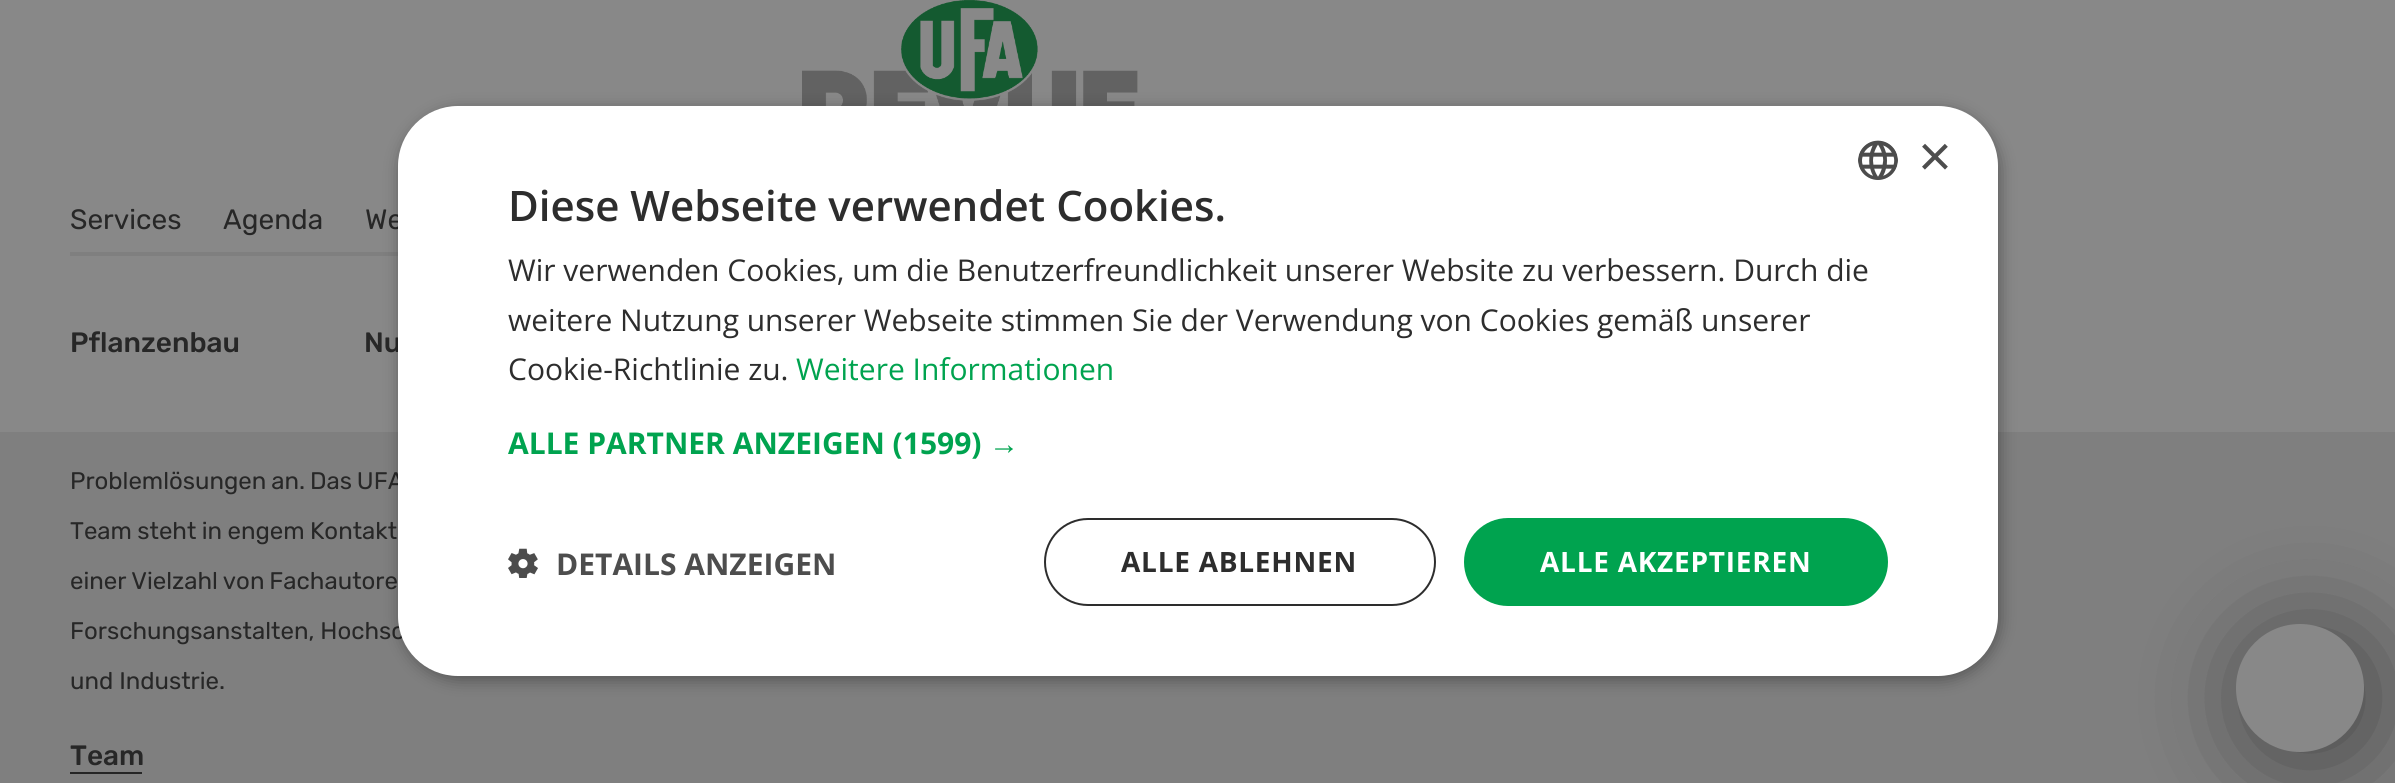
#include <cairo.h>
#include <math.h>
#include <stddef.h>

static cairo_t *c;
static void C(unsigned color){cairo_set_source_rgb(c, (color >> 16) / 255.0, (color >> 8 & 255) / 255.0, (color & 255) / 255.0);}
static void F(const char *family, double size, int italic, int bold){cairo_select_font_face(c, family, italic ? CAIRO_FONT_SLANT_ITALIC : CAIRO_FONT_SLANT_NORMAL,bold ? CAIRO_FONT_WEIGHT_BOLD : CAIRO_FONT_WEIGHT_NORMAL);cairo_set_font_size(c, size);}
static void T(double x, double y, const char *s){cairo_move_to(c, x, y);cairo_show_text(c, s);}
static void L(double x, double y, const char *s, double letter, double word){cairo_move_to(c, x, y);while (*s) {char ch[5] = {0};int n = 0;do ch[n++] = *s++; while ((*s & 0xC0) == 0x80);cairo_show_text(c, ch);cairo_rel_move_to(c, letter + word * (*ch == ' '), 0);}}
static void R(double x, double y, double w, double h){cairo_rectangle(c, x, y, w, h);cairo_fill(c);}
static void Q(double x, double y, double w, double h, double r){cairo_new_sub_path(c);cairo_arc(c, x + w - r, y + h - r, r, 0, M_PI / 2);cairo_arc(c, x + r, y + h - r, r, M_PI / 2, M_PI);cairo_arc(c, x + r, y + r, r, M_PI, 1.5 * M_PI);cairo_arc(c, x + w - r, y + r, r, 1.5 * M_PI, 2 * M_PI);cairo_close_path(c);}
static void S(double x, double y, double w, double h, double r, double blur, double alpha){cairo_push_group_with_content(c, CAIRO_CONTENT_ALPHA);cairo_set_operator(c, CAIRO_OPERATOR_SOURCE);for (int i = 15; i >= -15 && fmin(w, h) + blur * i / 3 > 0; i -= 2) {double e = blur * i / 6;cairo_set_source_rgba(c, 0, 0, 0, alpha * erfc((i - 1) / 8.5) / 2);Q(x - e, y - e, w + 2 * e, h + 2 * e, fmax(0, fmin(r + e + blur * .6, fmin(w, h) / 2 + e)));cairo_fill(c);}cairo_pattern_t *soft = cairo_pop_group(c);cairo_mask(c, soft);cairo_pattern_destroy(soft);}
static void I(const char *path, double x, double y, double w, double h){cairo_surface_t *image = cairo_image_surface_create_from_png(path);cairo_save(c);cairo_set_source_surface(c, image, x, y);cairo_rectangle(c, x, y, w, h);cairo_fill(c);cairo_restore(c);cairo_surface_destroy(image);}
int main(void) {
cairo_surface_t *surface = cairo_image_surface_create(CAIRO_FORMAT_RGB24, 2395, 783);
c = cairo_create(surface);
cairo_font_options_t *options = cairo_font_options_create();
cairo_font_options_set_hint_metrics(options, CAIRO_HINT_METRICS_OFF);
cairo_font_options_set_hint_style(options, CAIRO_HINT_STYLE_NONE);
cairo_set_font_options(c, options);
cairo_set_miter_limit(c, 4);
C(0x7f7f7f);
cairo_paint(c);
C(0x888888);
R(0,0,2395,432);
I("1.png",802,0,336,106);
C(0x7f7f7f);
R(70,252,328,4);
F("Rubik",28,0,0);
C(0x272727);
T(70,229,"Services");
T(223,229,"Agenda");
T(365,229,"We");
F("Rubik Medium",28,0,0);
T(70,352,"Pflanzenbau");
T(364,352,"Nu");
F("Rubik",24,0,0);
L(70,489,"Problemlösungen an. Das UFA",0,-1);
L(70,539,"Team steht in engem Kontakt",0,-.5);
L(70,589,"einer Vielzahl von Fachautore",0,-1);
T(70,639,"Forschungsanstalten, Hochsc");
T(70,689,"und Industrie.");
F("Rubik Medium",28,0,0);
T(70,765,"Team");
C(0x262626);
R(70,772,72,2);
C(0x000000);
S(400,110,1600,570,60,8,.35);
C(0xffffff);
Q(398,106,1600,570,60);
cairo_fill(c);
I("2.png",1858,140,40,40);
F("Liberation Sans",58,0,0);
C(0x4d4d4d);
T(1918,176,"×");
F("Open Sans SemiBold",42,0,0);
C(0x2d2d2d);
T(508,221,"Diese Webseite verwendet Cookies.");
F("Open Sans",30,0,0);
T(508,281,"Wir verwenden Cookies, um die Benutzerfreundlichkeit unserer Website zu verbessern. Durch die");
T(508,331,"weitere Nutzung unserer Webseite stimmen Sie der Verwendung von Cookies gemäß unserer");
T(508,380,"Cookie-Richtlinie zu.");
C(0x00a34f);
T(796,380,"Weitere Informationen");
F("Open Sans",30,0,1);
T(508,454,"ALLE PARTNER ANZEIGEN (1599)");
F("Liberation Sans",30,0,1);
T(989,454,"→");
I("3.png",508,548,30,30);
F("Open Sans",30,0,1);
C(0x4d4d4d);
T(556,575,"DETAILS ANZEIGEN");
Q(1045,519,390,86,43);
C(0x2d2d2d);
cairo_stroke(c);
F("Open Sans",28,0,1);
L(1121,572,"ALLE ABLEHNEN",.75,0);
C(0x00a34f);
Q(1464,518,424,88,44);
cairo_fill(c);
C(0xffffff);
L(1540,572,"ALLE AKZEPTIEREN",.75,0);
C(0x494949);
S(2246,634,128,128,64,50,1);
C(0x888888);
cairo_arc(c,2300,688,64,0,2 * M_PI);
cairo_fill(c);
cairo_surface_write_to_png(surface, "o.png");
cairo_font_options_destroy(options);
cairo_destroy(c);
cairo_surface_destroy(surface);
return 0;
}
